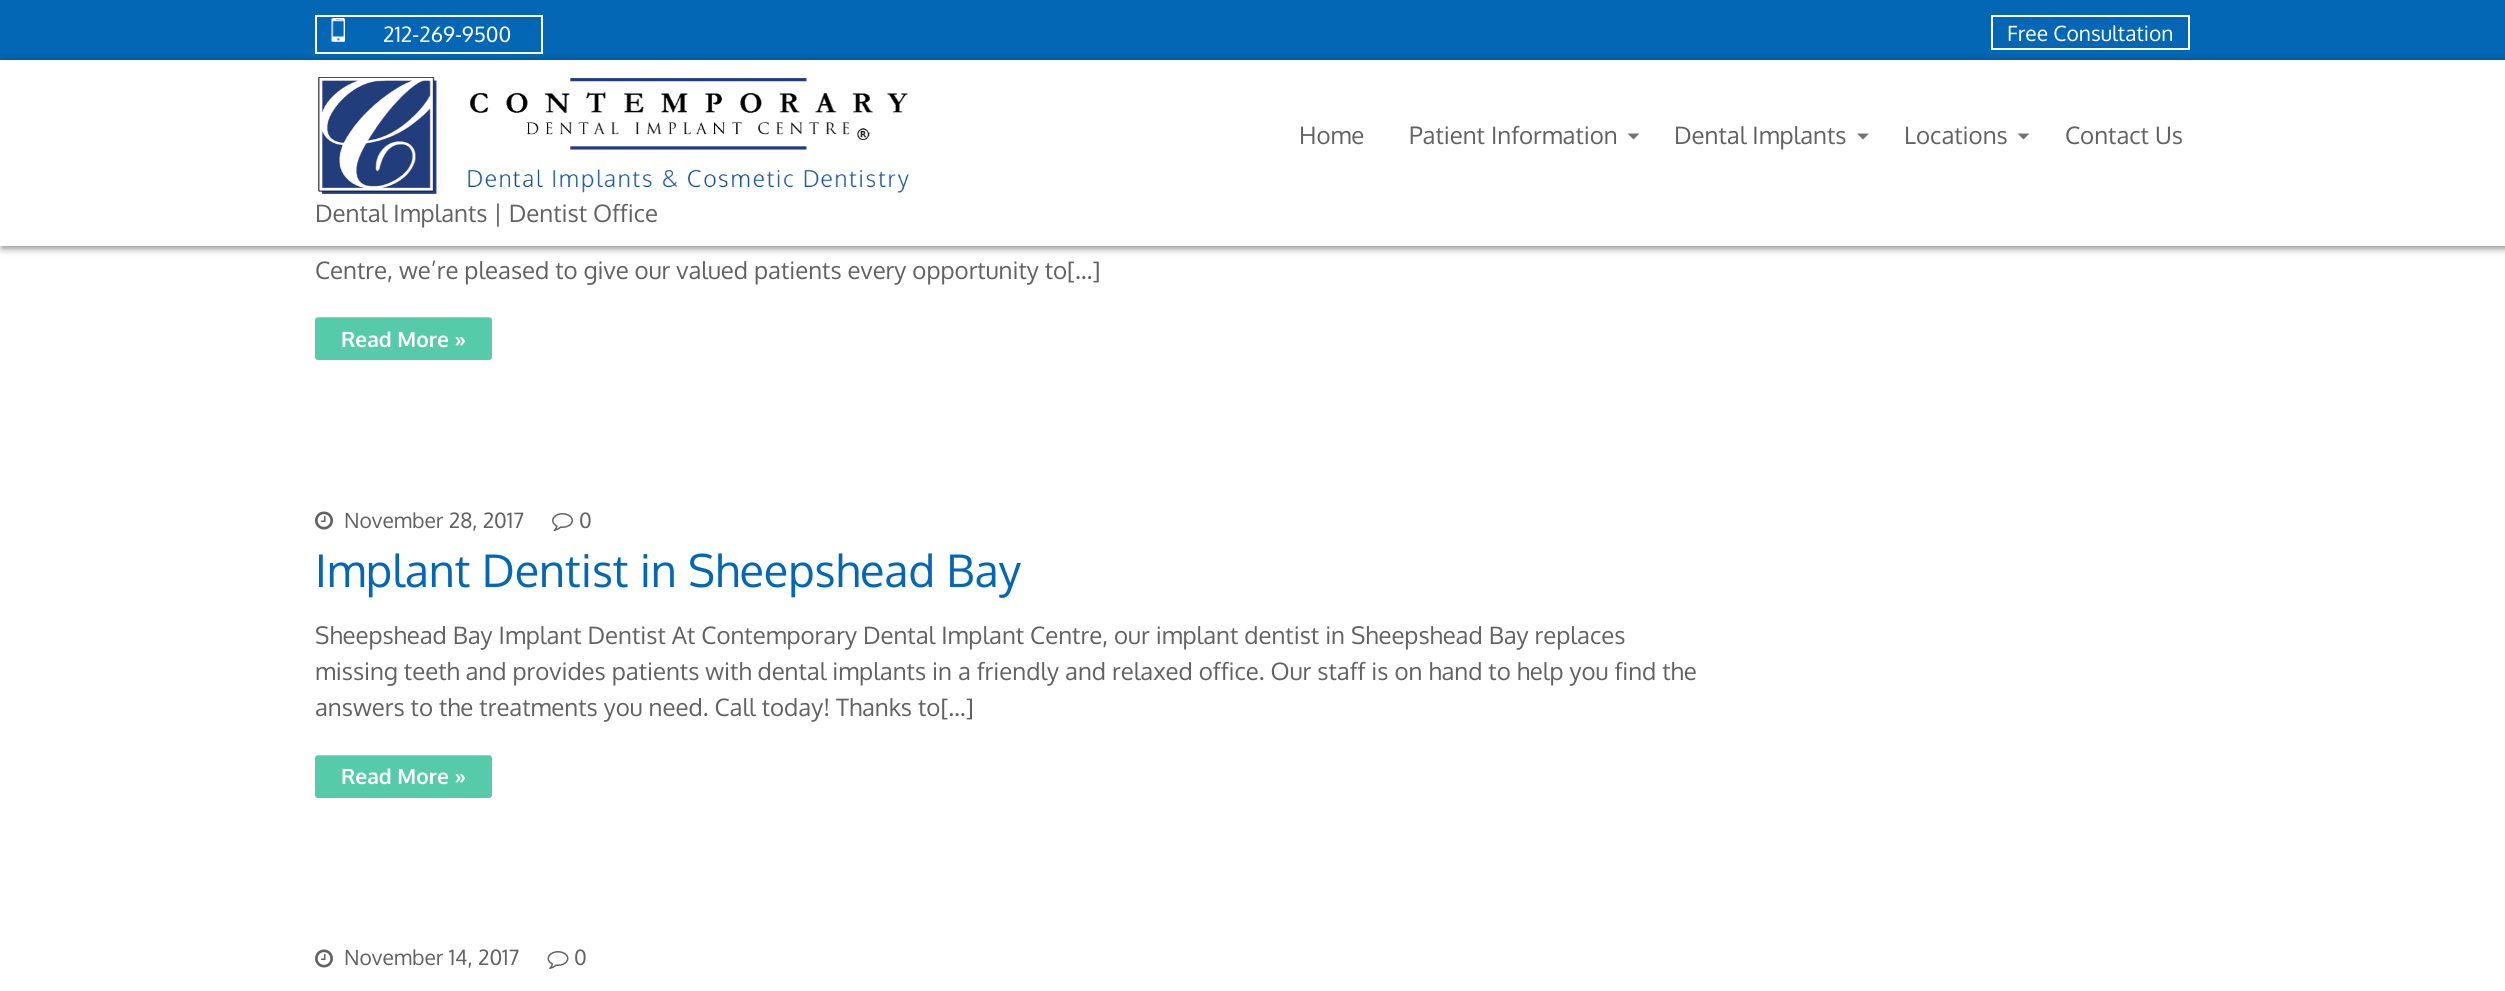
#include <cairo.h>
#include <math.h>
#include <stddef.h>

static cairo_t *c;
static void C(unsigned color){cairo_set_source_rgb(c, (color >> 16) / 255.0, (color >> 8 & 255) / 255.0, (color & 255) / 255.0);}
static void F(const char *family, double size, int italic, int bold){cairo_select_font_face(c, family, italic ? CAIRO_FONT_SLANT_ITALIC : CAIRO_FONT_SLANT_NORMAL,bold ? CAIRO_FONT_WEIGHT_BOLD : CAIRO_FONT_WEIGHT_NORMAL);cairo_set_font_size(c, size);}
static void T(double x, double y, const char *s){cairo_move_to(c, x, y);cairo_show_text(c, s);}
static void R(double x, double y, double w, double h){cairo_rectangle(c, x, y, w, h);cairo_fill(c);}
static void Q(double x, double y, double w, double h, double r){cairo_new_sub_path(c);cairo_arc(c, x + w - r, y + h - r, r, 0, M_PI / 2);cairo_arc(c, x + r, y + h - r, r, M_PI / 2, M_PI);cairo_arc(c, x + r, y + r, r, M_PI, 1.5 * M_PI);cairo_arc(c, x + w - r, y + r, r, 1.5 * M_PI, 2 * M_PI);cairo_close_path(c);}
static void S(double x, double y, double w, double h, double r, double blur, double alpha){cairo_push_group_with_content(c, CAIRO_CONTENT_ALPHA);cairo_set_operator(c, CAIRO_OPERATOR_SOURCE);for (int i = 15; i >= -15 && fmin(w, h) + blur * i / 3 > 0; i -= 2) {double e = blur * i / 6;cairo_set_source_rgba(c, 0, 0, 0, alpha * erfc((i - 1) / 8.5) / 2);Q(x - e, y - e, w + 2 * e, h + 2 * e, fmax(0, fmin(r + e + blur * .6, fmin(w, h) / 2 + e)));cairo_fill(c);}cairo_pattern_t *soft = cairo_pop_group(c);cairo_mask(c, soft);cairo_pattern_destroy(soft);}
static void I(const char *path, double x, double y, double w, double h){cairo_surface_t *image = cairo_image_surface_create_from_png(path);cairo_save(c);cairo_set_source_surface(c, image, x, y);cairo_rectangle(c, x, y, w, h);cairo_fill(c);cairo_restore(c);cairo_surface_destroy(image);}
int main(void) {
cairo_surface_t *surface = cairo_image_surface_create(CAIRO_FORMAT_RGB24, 2505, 991);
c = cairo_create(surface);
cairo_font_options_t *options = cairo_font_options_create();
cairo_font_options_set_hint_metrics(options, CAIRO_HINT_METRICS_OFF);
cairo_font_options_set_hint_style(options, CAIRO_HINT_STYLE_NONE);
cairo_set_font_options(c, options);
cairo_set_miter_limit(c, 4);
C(0xffffff);
cairo_paint(c);
C(0x0367b5);
R(0,0,2505,60);
cairo_rectangle(c,316,16,226,37);
C(0xffffff);
cairo_stroke(c);
I("1.png",331,18,14,24);
F("Oxygen",21,0,0);
T(383,42,"212-269-9500");
cairo_rectangle(c,1992,16,197,33);
cairo_stroke(c);
T(2007,41,"Free Consultation");
C(0x000000);
S(2,62,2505,186,0,4,.5);
C(0xffffff);
R(0,60,2505,186);
F("Oxygen",24,0,0);
C(0x626262);
T(1299,144,"Home");
T(1409,144,"Patient Information");
C(0x727272);
cairo_new_path(c);
cairo_move_to(c,1627.5,133.5);
cairo_line_to(c,1639.5,133.5);
cairo_line_to(c,1633.5,139.5);
cairo_close_path(c);
cairo_fill(c);
C(0x626262);
T(1674,144,"Dental Implants");
C(0x727272);
cairo_new_path(c);
cairo_move_to(c,1857,133.5);
cairo_line_to(c,1869,133.5);
cairo_line_to(c,1863,139.5);
cairo_close_path(c);
cairo_fill(c);
C(0x626262);
T(1904,144,"Locations");
C(0x727272);
cairo_new_path(c);
cairo_move_to(c,2017.5,133.5);
cairo_line_to(c,2029.5,133.5);
cairo_line_to(c,2023.5,139.5);
cairo_close_path(c);
cairo_fill(c);
C(0x626262);
T(2065,144,"Contact Us");
I("2.png",318,77,591,117);
T(315,222,"Dental Implants | Dentist Office");
T(315,279,"Centre, we’re pleased to give our valued patients every opportunity to[…]");
C(0x55cbaa);
Q(315,317,177,43,3);
cairo_fill(c);
F("Oxygen",21,0,1);
C(0xffffff);
T(341,347,"Read More »");
cairo_set_source_rgba(c,1,1,1,0.3);
cairo_new_path(c);
cairo_move_to(c,318,318);
cairo_line_to(c,489,318);
cairo_curve_to(c,491,318,492,319,492,321);
cairo_line_to(c,492,320);
cairo_curve_to(c,492,318,491,317,489,317);
cairo_line_to(c,318,317);
cairo_curve_to(c,316,317,315,318,315,320);
cairo_line_to(c,315,321);
cairo_curve_to(c,315,319,316,318,318,318);
cairo_close_path(c);
cairo_fill(c);
I("3.png",315,511,18,19);
F("Oxygen",21,0,0);
C(0x626262);
T(344,528,"November 28, 2017");
I("4.png",552,513,21,18);
T(579,528,"0");
F("Oxygen",45,0,0);
C(0x0367b5);
T(315,587,"Implant Dentist in Sheepshead Bay");
F("Oxygen",24,0,0);
C(0x626262);
T(315,644,"Sheepshead Bay Implant Dentist At Contemporary Dental Implant Centre, our implant dentist in Sheepshead Bay replaces");
T(315,680,"missing teeth and provides patients with dental implants in a friendly and relaxed office. Our staff is on hand to help you find the");
T(315,716,"answers to the treatments you need. Call today! Thanks to[…]");
C(0x55cbaa);
Q(315,755,177,43,3);
cairo_fill(c);
F("Oxygen",21,0,1);
C(0xffffff);
T(341,784,"Read More »");
cairo_set_source_rgba(c,1,1,1,0.3);
cairo_new_path(c);
cairo_move_to(c,318,756);
cairo_line_to(c,489,756);
cairo_curve_to(c,491,756,492,757,492,759);
cairo_line_to(c,492,758);
cairo_curve_to(c,492,756,491,755,489,755);
cairo_line_to(c,318,755);
cairo_curve_to(c,316,755,315,756,315,758);
cairo_line_to(c,315,759);
cairo_curve_to(c,315,757,316,756,318,756);
cairo_close_path(c);
cairo_fill(c);
I("3.png",315,949,18,19);
F("Oxygen",21,0,0);
C(0x626262);
T(344,965,"November 14, 2017");
I("5.png",547,951,22,18);
T(574,965,"0");
cairo_surface_write_to_png(surface, "o.png");
cairo_font_options_destroy(options);
cairo_destroy(c);
cairo_surface_destroy(surface);
return 0;
}
